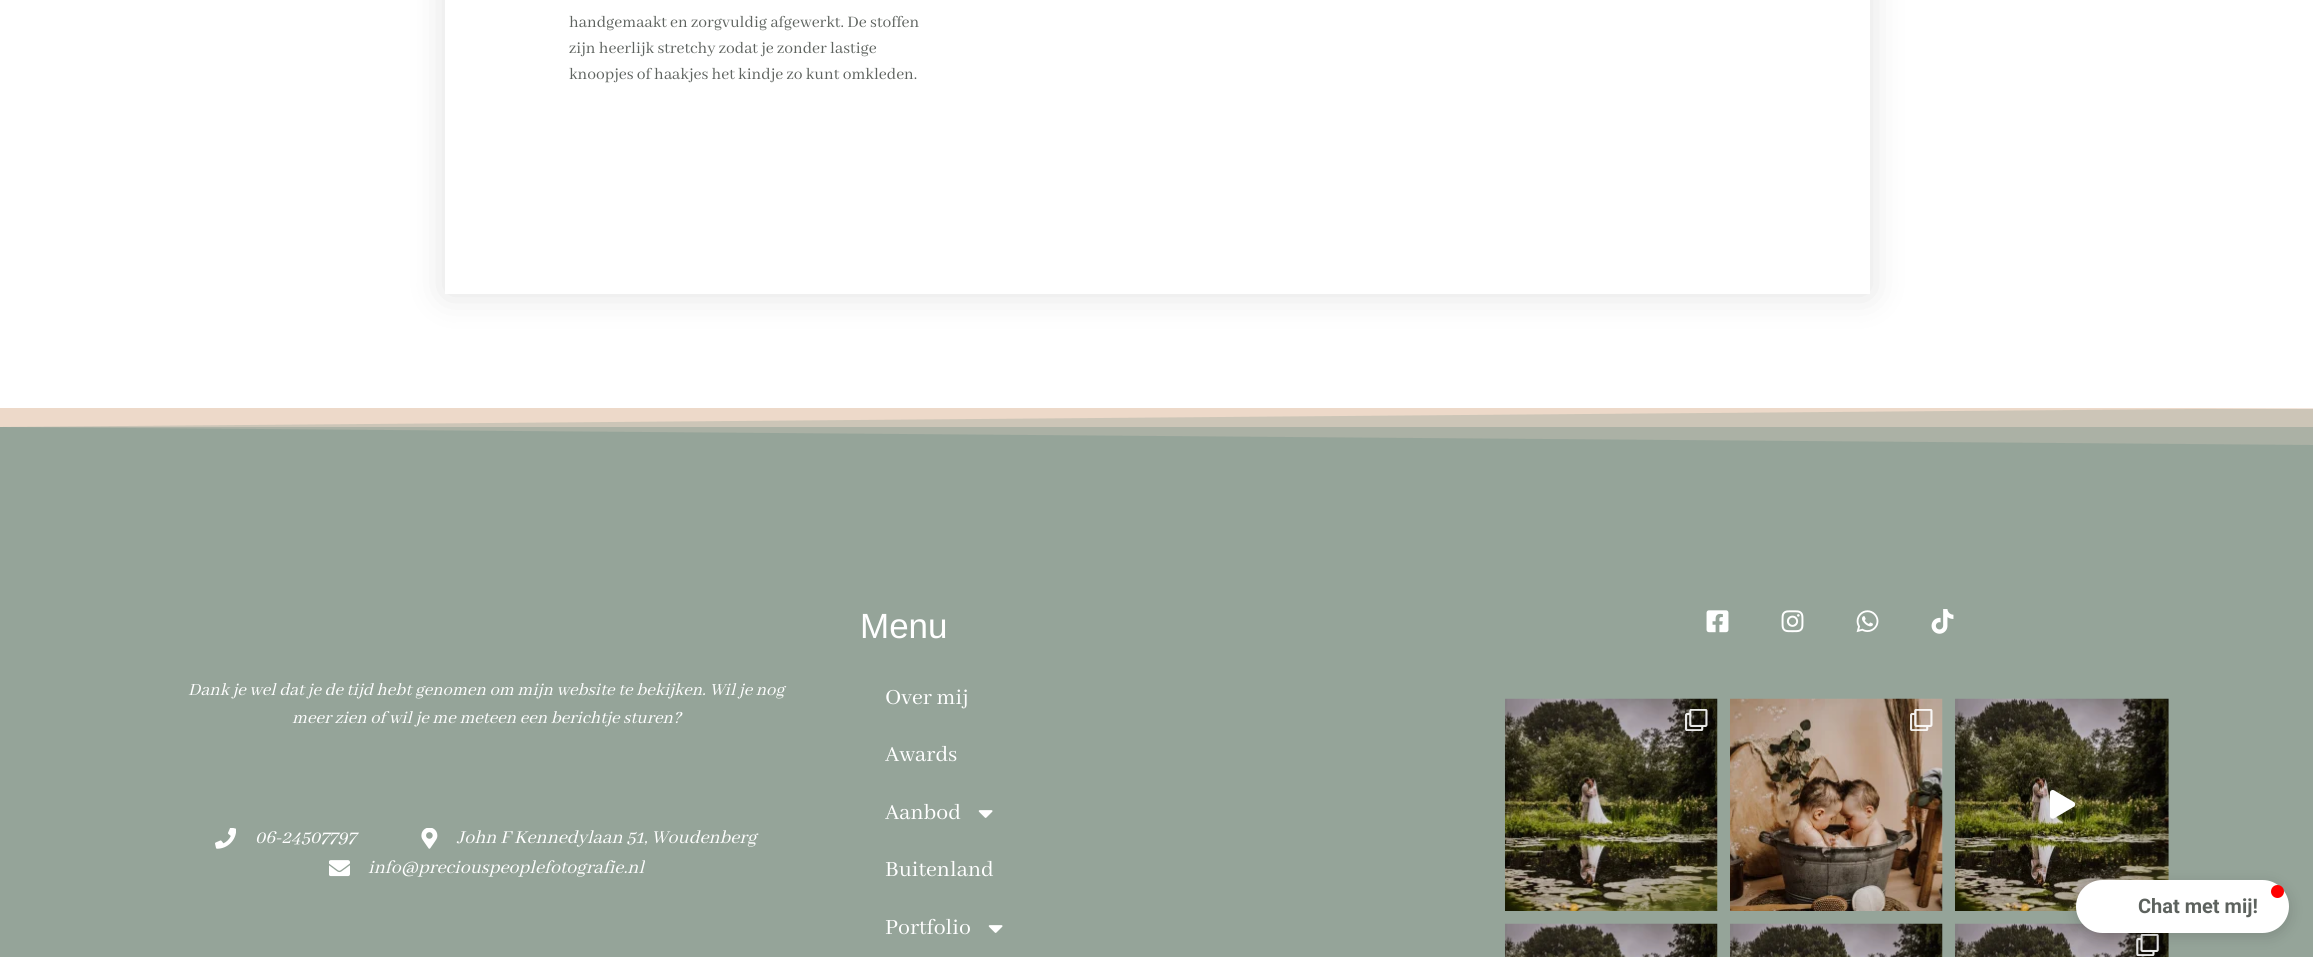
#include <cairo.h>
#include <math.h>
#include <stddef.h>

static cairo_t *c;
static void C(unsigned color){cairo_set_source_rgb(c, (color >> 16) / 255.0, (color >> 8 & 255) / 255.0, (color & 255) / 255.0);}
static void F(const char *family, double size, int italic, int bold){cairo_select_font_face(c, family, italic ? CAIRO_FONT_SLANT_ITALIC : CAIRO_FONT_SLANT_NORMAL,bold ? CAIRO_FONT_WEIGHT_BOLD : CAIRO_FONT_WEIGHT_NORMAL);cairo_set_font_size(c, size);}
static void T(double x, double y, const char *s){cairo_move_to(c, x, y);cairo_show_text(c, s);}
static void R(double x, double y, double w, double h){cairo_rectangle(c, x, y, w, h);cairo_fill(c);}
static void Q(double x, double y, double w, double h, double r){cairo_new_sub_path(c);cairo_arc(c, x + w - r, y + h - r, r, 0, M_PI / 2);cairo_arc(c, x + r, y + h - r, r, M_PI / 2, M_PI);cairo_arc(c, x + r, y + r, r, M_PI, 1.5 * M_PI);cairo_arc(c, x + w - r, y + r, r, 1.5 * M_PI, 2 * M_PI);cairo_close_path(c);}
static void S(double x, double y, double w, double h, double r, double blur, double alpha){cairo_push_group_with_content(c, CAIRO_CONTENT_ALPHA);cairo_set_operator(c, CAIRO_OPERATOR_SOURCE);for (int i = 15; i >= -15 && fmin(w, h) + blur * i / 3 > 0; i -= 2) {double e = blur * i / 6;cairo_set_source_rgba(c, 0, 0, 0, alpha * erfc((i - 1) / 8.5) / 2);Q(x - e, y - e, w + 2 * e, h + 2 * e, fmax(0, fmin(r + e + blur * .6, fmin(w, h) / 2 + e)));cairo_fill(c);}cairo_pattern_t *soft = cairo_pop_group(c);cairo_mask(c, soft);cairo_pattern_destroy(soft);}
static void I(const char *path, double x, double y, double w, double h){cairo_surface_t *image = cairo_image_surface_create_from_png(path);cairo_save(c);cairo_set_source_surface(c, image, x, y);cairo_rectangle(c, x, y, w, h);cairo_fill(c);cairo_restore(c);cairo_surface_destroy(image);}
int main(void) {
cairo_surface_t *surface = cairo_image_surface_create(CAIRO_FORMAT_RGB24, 2313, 957);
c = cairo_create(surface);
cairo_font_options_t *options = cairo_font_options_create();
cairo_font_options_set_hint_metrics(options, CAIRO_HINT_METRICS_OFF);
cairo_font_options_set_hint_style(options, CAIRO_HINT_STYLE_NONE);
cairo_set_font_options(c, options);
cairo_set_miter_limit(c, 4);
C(0xffffff);
cairo_paint(c);
C(0xf6ece4);
R(2200,408,113,1);
C(0x000000);
S(445,-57,1425,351,0,19,.12);
C(0xffffff);
R(445,0,1425,294);
F("Abhaya Libre",17.5,0,0);
C(0x5d625e);
T(569,27,"handgemaakt en zorgvuldig afgewerkt. De stoffen");
T(569,53,"zijn heerlijk stretchy zodat je zonder lastige");
T(569,79,"knoopjes of haakjes het kindje zo kunt omkleden.");
C(0x95a499);
R(0,427,2313,530);
C(0xc1bfb1);
R(3,409,2310,18);
C(0xedd9c9);
cairo_new_path(c);
cairo_move_to(c,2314,408);
cairo_line_to(c,-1,408);
cairo_line_to(c,-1,427);
cairo_close_path(c);
cairo_fill(c);
cairo_set_source_rgba(c,0.929,0.851,0.788,0.25);
cairo_new_path(c);
cairo_move_to(c,-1,408);
cairo_line_to(c,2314,408);
cairo_line_to(c,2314,445);
cairo_line_to(c,-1,427);
cairo_close_path(c);
cairo_fill(c);
F("Abhaya Libre",18.75,1,0);
C(0xffffff);
T(188,695,"Dank je wel dat je de tijd hebt genomen om mijn website te bekijken. Wil je nog");
T(292,723,"meer zien of wil je me meteen een berichtje sturen?");
I("1.png",215,828,21,21);
F("Abhaya Libre",20,1,0);
T(255,843,"06-24507797");
I("2.png",421,828,17,21);
T(457,843,"John F Kennedylaan 51, Woudenberg");
I("3.png",329,860,21,17);
T(368,873,"info@preciouspeoplefotografie.nl");
F("Liberation Sans",35,0,0);
T(860,638,"Menu");
F("Abhaya Libre",23.75,0,0);
T(885,704,"Over mij");
T(885,761,"Awards");
T(885,819,"Aanbod");
I("4.png",978,810,15,8);
T(885,876,"Buitenland");
T(885,934,"Portfolio");
I("4.png",988,925,15,8);
I("5.png",1706,610,23,23);
I("6.png",1781,610,23,23);
I("7.png",1856,610,23,23);
I("8.png",1931,609,23,25);
I("9.png",1505,698,213,213);
I("10.png",1685,709,23,22);
I("11.png",1730,698,213,213);
I("12.png",1910,709,23,22);
I("13.png",1955,698,214,213);
I("14.png",2050,790,26,29);
I("15.png",1505,923,213,34);
I("16.png",1730,923,213,34);
I("17.png",1955,923,214,34);
I("18.png",2136,934,23,22);
C(0x000000);
S(2076,884,213,52,26,7.5,.15);
C(0xffffff);
Q(2076,880,213,53,26.5);
cairo_fill(c);
C(0xff0000);
cairo_arc(c,2277.5,891.5,6.5,0,2 * M_PI);
cairo_fill(c);
F("Roboto",20,0,1);
C(0x5d625e);
T(2138,913,"Chat met mij!");
cairo_surface_write_to_png(surface, "o.png");
cairo_font_options_destroy(options);
cairo_destroy(c);
cairo_surface_destroy(surface);
return 0;
}
